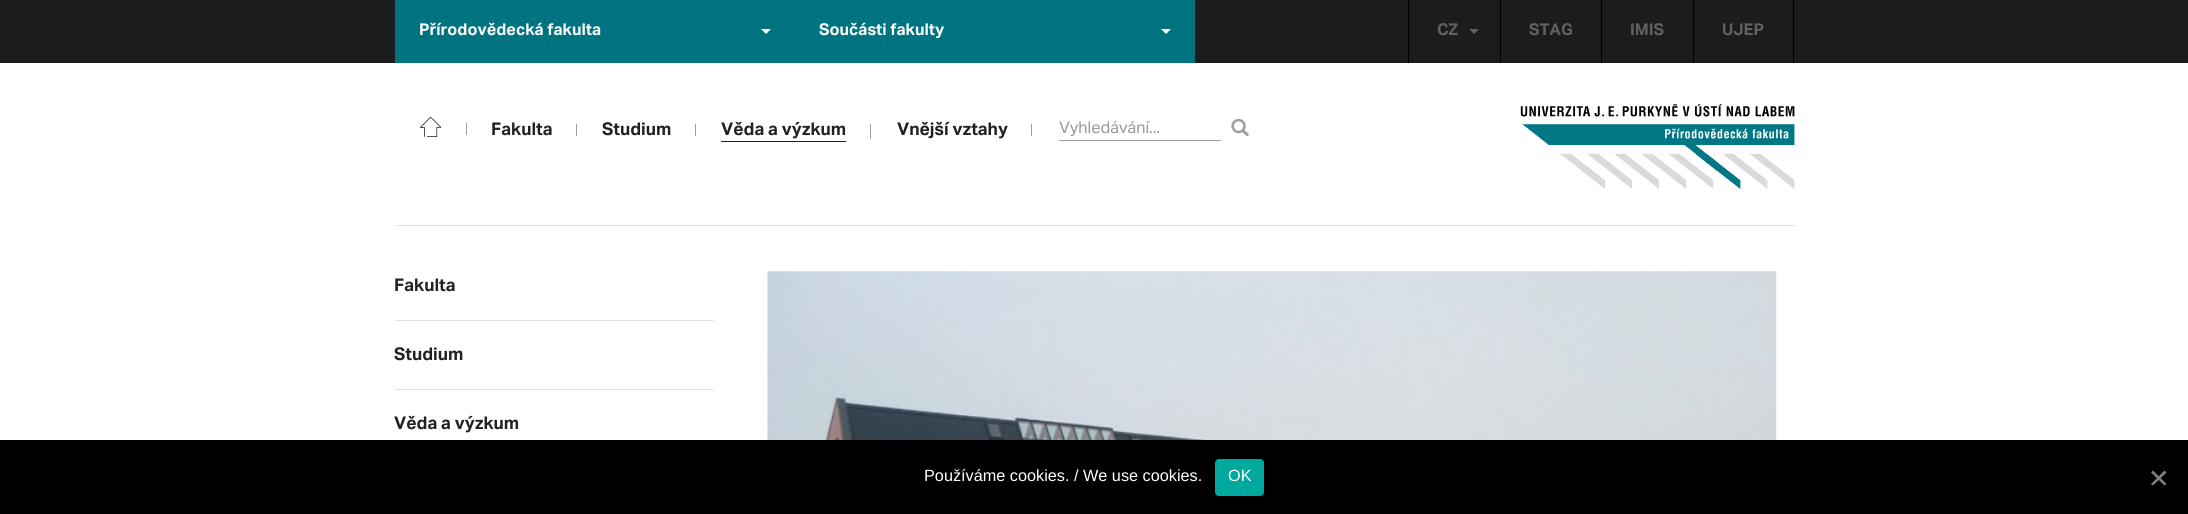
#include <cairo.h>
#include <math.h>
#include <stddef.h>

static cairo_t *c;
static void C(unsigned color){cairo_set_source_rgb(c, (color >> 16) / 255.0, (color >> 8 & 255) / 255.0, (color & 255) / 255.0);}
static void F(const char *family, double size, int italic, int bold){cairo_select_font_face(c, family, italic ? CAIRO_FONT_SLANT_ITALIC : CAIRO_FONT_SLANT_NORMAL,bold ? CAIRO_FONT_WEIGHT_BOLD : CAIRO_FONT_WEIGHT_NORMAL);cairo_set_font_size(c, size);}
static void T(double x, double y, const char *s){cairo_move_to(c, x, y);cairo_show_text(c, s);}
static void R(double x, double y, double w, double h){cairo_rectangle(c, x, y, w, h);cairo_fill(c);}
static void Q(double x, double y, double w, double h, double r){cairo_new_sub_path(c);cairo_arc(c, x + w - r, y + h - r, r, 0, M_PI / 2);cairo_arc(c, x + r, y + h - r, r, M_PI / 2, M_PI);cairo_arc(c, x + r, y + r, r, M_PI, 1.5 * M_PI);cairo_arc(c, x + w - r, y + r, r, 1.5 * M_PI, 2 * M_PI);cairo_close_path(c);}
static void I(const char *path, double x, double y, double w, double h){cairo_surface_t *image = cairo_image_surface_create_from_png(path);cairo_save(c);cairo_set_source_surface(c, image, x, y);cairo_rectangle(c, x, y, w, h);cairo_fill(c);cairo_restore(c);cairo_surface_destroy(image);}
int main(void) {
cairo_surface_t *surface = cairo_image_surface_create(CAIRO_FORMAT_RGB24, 2188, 514);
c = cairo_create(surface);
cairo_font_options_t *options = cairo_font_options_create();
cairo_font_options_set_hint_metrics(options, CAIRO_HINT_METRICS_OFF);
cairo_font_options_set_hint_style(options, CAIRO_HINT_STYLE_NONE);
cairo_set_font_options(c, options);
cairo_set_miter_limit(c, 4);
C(0xffffff);
cairo_paint(c);
C(0x1c1c1c);
R(0,0,2188,63);
C(0x007380);
R(395,0,800,63);
F("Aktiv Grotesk",16.25,0,1);
C(0xffffff);
T(419,35,"Přírodovědecká fakulta");
cairo_new_path(c);
cairo_move_to(c,761,29);
cairo_line_to(c,771,29);
cairo_line_to(c,766,34);
cairo_close_path(c);
cairo_fill(c);
T(819,35,"Součásti fakulty");
cairo_new_path(c);
cairo_move_to(c,1161,29);
cairo_line_to(c,1171,29);
cairo_line_to(c,1166,34);
cairo_close_path(c);
cairo_fill(c);
C(0x000000);
R(1500,0,1,63);
R(1408,0,1,63);
C(0x616161);
T(1437,35,"CZ");
cairo_new_path(c);
cairo_move_to(c,1469,29);
cairo_line_to(c,1479,29);
cairo_line_to(c,1474,34);
cairo_close_path(c);
cairo_fill(c);
C(0x000000);
R(1601,0,1,63);
C(0x616161);
T(1529,35,"STAG");
C(0x000000);
R(1693,0,1,63);
C(0x616161);
T(1630,35,"IMIS");
C(0x000000);
R(1793,0,1,63);
C(0x616161);
T(1722,35,"UJEP");
I("1.png",420,116,21,21);
C(0x9e9e9e);
R(466,123,1,12);
C(0xe1e1e1);
R(395,225,1400,1);
F("Aktiv Grotesk",17.5,0,1);
C(0x212121);
T(491,135,"Fakulta");
C(0x9e9e9e);
R(576,124,1,12);
C(0x212121);
T(602,135,"Studium");
C(0x9e9e9e);
R(695,124,1,12);
C(0x212121);
R(721,141,125,1);
T(721,135,"Věda a výzkum");
C(0x9e9e9e);
R(870,124,1,15);
C(0x212121);
T(897,135,"Vnější vztahy");
C(0x9e9e9e);
R(1031,124,1,12);
R(1059,140,162,1);
F("Aktiv Grotesk",16.25,0,0);
C(0x999999);
T(1059,133,"Vyhledávání...");
I("2.png",1231,118,18,19);
I("3.png",1520,104,275,85);
C(0xe1e1e1);
R(395,320,319,1);
F("Aktiv Grotesk",17.5,0,1);
C(0x212121);
T(394,291,"Fakulta");
C(0xe1e1e1);
R(395,389,319,1);
C(0x212121);
T(394,360,"Studium");
T(394,429,"Věda a výzkum");
I("4.png",767,271,1010,169);
C(0x000000);
R(0,440,2188,74);
F("Liberation Sans",16.25,0,0);
C(0xffffff);
T(924,481,"Používáme cookies. / We use cookies.");
C(0x00a99d);
Q(1215,459,49,37,4);
cairo_fill(c);
C(0xffffff);
T(1228,481,"OK");
C(0x808080);
cairo_new_path(c);
cairo_move_to(c,2164.5,470.5);
cairo_line_to(c,2166.5,472.5);
cairo_line_to(c,2153,485.5);
cairo_line_to(c,2151,484);
cairo_close_path(c);
cairo_fill(c);
cairo_new_path(c);
cairo_move_to(c,2151,472.5);
cairo_line_to(c,2153,470.5);
cairo_line_to(c,2166.5,484);
cairo_line_to(c,2164.5,485.5);
cairo_close_path(c);
cairo_fill(c);
cairo_surface_write_to_png(surface, "o.png");
cairo_font_options_destroy(options);
cairo_destroy(c);
cairo_surface_destroy(surface);
return 0;
}
